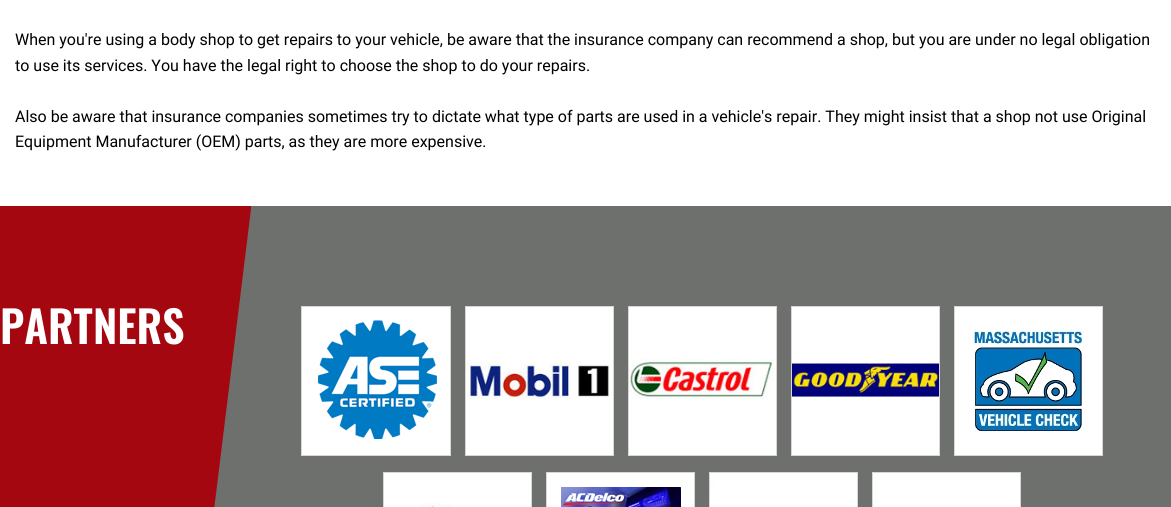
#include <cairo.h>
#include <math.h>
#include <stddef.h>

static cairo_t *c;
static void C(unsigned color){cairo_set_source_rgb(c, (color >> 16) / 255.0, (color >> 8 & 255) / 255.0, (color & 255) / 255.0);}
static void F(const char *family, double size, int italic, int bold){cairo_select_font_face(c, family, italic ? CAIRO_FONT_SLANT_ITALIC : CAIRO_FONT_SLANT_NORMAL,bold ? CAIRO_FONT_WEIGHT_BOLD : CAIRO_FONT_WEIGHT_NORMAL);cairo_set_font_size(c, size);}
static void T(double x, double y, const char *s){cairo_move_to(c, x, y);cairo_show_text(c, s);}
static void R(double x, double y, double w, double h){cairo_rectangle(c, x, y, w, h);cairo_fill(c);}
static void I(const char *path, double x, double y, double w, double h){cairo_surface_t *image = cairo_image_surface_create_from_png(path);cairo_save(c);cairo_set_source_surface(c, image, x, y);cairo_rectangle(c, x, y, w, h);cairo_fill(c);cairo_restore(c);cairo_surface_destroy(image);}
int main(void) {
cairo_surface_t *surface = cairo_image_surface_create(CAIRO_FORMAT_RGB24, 1171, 507);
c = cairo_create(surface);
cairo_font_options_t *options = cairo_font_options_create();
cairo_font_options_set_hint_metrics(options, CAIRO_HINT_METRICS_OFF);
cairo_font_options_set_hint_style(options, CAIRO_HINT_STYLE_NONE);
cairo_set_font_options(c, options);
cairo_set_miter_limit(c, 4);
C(0xffffff);
cairo_paint(c);
F("Roboto",16,0,0);
C(0x000000);
T(15,45,"When you're using a body shop to get repairs to your vehicle, be aware that the insurance company can recommend a shop, but you are under no legal obligation");
T(15,71,"to use its services. You have the legal right to choose the shop to do your repairs.");
T(15,122,"Also be aware that insurance companies sometimes try to dictate what type of parts are used in a vehicle's repair. They might insist that a shop not use Original");
T(15,147,"Equipment Manufacturer (OEM) parts, as they are more expensive.");
C(0x6e706d);
R(214,206,957,301);
C(0xa40710);
cairo_new_path(c);
cairo_move_to(c,0,206);
cairo_line_to(c,0,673);
cairo_line_to(c,194,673);
cairo_line_to(c,251,209);
cairo_line_to(c,251,206);
cairo_close_path(c);
cairo_fill(c);
F("Oswald SemiBold",44,0,0);
C(0xffffff);
T(0,344,"PARTNERS");
cairo_rectangle(c,301.5,306.5,149,149);
cairo_fill_preserve(c);
C(0xd8d6d6);
cairo_set_line_width(c,1);
cairo_stroke(c);
I("1.png",318,320,119,119);
C(0xffffff);
cairo_rectangle(c,465.5,306.5,148,149);
cairo_fill_preserve(c);
C(0xd8d6d6);
cairo_stroke(c);
I("2.png",466,362,144,37);
C(0xffffff);
cairo_rectangle(c,628.5,306.5,148,149);
cairo_fill_preserve(c);
C(0xd8d6d6);
cairo_stroke(c);
I("3.png",629,358,145,41);
C(0xffffff);
cairo_rectangle(c,791.5,306.5,148,149);
cairo_fill_preserve(c);
C(0xd8d6d6);
cairo_stroke(c);
I("4.png",792,363,147,34);
C(0xffffff);
cairo_rectangle(c,954.5,306.5,148,149);
cairo_fill_preserve(c);
C(0xd8d6d6);
cairo_stroke(c);
I("5.png",974,331,108,100);
C(0xffffff);
cairo_rectangle(c,383.5,472.5,148,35);
cairo_fill_preserve(c);
C(0xd8d6d6);
cairo_stroke(c);
I("6.png",419,503,34,4);
C(0xffffff);
cairo_rectangle(c,546.5,472.5,148,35);
cairo_fill_preserve(c);
C(0xd8d6d6);
cairo_stroke(c);
I("7.png",561,487,120,20);
C(0xffffff);
cairo_rectangle(c,709.5,472.5,148,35);
cairo_fill_preserve(c);
C(0xd8d6d6);
cairo_stroke(c);
I("8.png",710,482,5,8);
C(0xffffff);
cairo_rectangle(c,872.5,472.5,148,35);
cairo_fill_preserve(c);
C(0xd8d6d6);
cairo_stroke(c);
cairo_surface_write_to_png(surface, "o.png");
cairo_font_options_destroy(options);
cairo_destroy(c);
cairo_surface_destroy(surface);
return 0;
}
